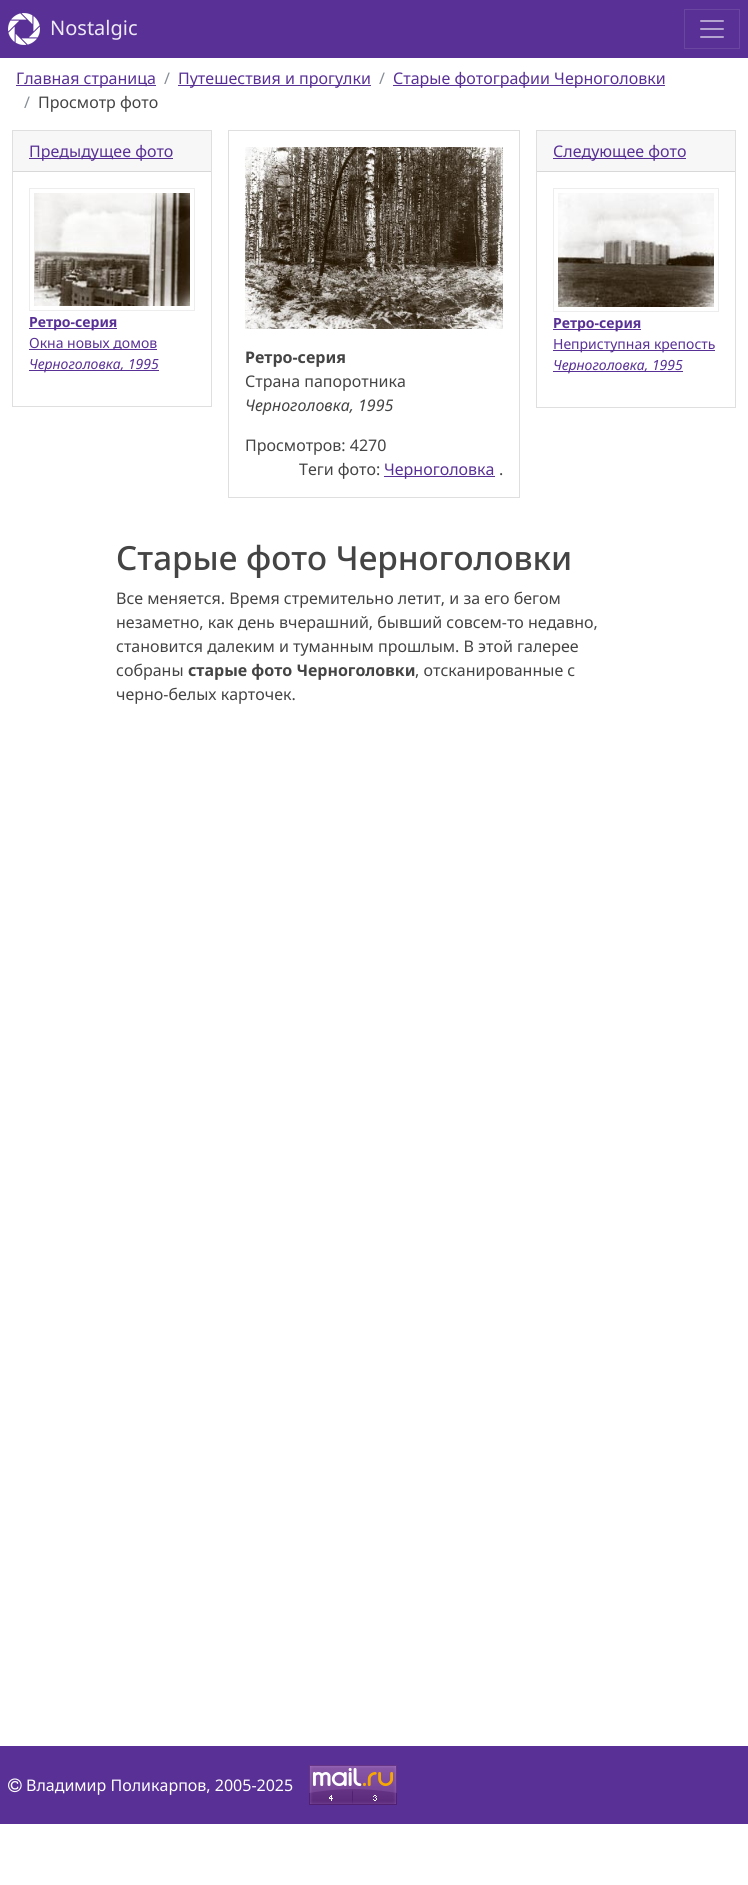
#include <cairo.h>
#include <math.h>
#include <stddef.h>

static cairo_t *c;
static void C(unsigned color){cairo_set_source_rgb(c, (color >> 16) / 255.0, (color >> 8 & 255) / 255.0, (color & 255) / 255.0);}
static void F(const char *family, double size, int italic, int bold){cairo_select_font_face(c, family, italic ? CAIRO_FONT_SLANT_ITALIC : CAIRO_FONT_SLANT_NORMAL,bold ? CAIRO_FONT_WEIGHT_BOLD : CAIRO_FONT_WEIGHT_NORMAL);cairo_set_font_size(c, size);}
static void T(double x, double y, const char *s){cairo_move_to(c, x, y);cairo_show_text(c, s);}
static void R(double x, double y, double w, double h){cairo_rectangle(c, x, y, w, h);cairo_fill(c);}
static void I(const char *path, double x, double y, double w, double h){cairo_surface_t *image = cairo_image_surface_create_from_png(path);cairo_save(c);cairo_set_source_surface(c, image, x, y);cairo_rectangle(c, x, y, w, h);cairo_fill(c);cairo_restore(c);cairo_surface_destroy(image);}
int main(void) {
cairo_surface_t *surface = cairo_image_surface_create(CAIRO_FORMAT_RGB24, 748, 1885);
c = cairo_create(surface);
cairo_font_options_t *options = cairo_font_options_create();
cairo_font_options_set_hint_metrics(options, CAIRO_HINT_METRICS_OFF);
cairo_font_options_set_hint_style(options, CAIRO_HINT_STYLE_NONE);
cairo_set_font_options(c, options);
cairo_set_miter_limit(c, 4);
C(0xffffff);
cairo_paint(c);
C(0x593196);
R(0,0,748,58);
I("1.png",8,13,32,32);
F("Noto Sans",20,0,0);
C(0xeeeaf5);
T(50,35,"Nostalgic");
cairo_rectangle(c,684.5,9.5,55,39);
C(0x6a46a1);
cairo_set_line_width(c,1);
cairo_stroke(c);
I("2.png",700,20,24,18);
C(0x593196);
R(16,85,140,1);
F("Noto Sans",16,0,0);
T(16,84,"Главная страница");
C(0x868e96);
T(164,84,"/");
C(0x593196);
R(178,85,193,1);
T(178,84,"Путешествия и прогулки");
C(0x868e96);
T(379,84,"/");
C(0x593196);
R(393,85,272,1);
T(393,84,"Старые фотографии Черноголовки");
C(0x868e96);
T(24,108,"/");
C(0x444444);
T(38,108,"Просмотр фото");
cairo_rectangle(c,12.5,130.5,199,276);
C(0xdfdfdf);
cairo_stroke(c);
C(0xf7f7f7);
R(13,131,198,40);
C(0xd8d8d8);
R(13,171,198,1);
C(0x593196);
R(29,158,144,1);
T(29,157,"Предыдущее фото");
cairo_rectangle(c,29.5,188.5,165,122);
C(0xededed);
cairo_stroke(c);
I("3.png",34,193,156,113);
C(0x593196);
R(29,328,88,1);
F("Noto Sans",14,0,1);
T(29,327,"Ретро-серия");
R(29,349,128,1);
F("Noto Sans",14,0,0);
T(29,348,"Окна новых домов");
R(29,370,130,1);
F("Noto Sans",14,1,0);
T(29,369,"Черноголовка, 1995");
cairo_rectangle(c,536.5,130.5,199,277);
C(0xdfdfdf);
cairo_stroke(c);
C(0xf7f7f7);
R(537,131,198,40);
C(0xd8d8d8);
R(537,171,198,1);
C(0x593196);
R(553,158,133,1);
F("Noto Sans",16,0,0);
T(553,157,"Следующее фото");
cairo_rectangle(c,553.5,188.5,165,123);
C(0xededed);
cairo_stroke(c);
I("4.png",558,193,156,114);
C(0x593196);
R(553,329,88,1);
F("Noto Sans",14,0,1);
T(553,328,"Ретро-серия");
R(553,350,162,1);
F("Noto Sans",14,0,0);
T(553,349,"Неприступная крепость");
R(553,371,130,1);
F("Noto Sans",14,1,0);
T(553,370,"Черноголовка, 1995");
cairo_rectangle(c,228.5,130.5,291,367);
C(0xdfdfdf);
cairo_stroke(c);
I("5.png",245,147,258,182);
F("Noto Sans",16,0,1);
C(0x444444);
T(245,363,"Ретро-серия");
F("Noto Sans",16,0,0);
T(245,387,"Страна папоротника");
F("Noto Sans",16,1,0);
T(245,411,"Черноголовка, 1995");
F("Noto Sans",16,0,0);
T(245,451,"Просмотров: 4270");
T(299,475,"Теги фото:");
C(0x593196);
R(384,476,111,1);
T(384,475,"Черноголовка");
C(0x444444);
T(499,475,".");
F("Noto Sans Medium",33.25,0,0);
T(116,570,"Старые фото Черноголовки");
F("Noto Sans",16,0,0);
T(116,604,"Все меняется. Время стремительно летит, и за его бегом");
T(116,628,"незаметно, как день вчерашний, бывший совсем-то недавно,");
T(116,652,"становится далеким и туманным прошлым. В этой галерее");
T(116,676,"собраны");
F("Noto Sans",16,0,1);
T(188,676,"старые фото Черноголовки");
F("Noto Sans",16,0,0);
T(415,676,", отсканированные с");
T(116,700,"черно-белых карточек.");
C(0x593196);
R(0,1746,748,78);
I("6.png",8,1778,14,15);
C(0xffffff);
T(26,1791,"Владимир Поликарпов, 2005-2025");
I("7.png",309,1765,88,40);
cairo_surface_write_to_png(surface, "o.png");
cairo_font_options_destroy(options);
cairo_destroy(c);
cairo_surface_destroy(surface);
return 0;
}
